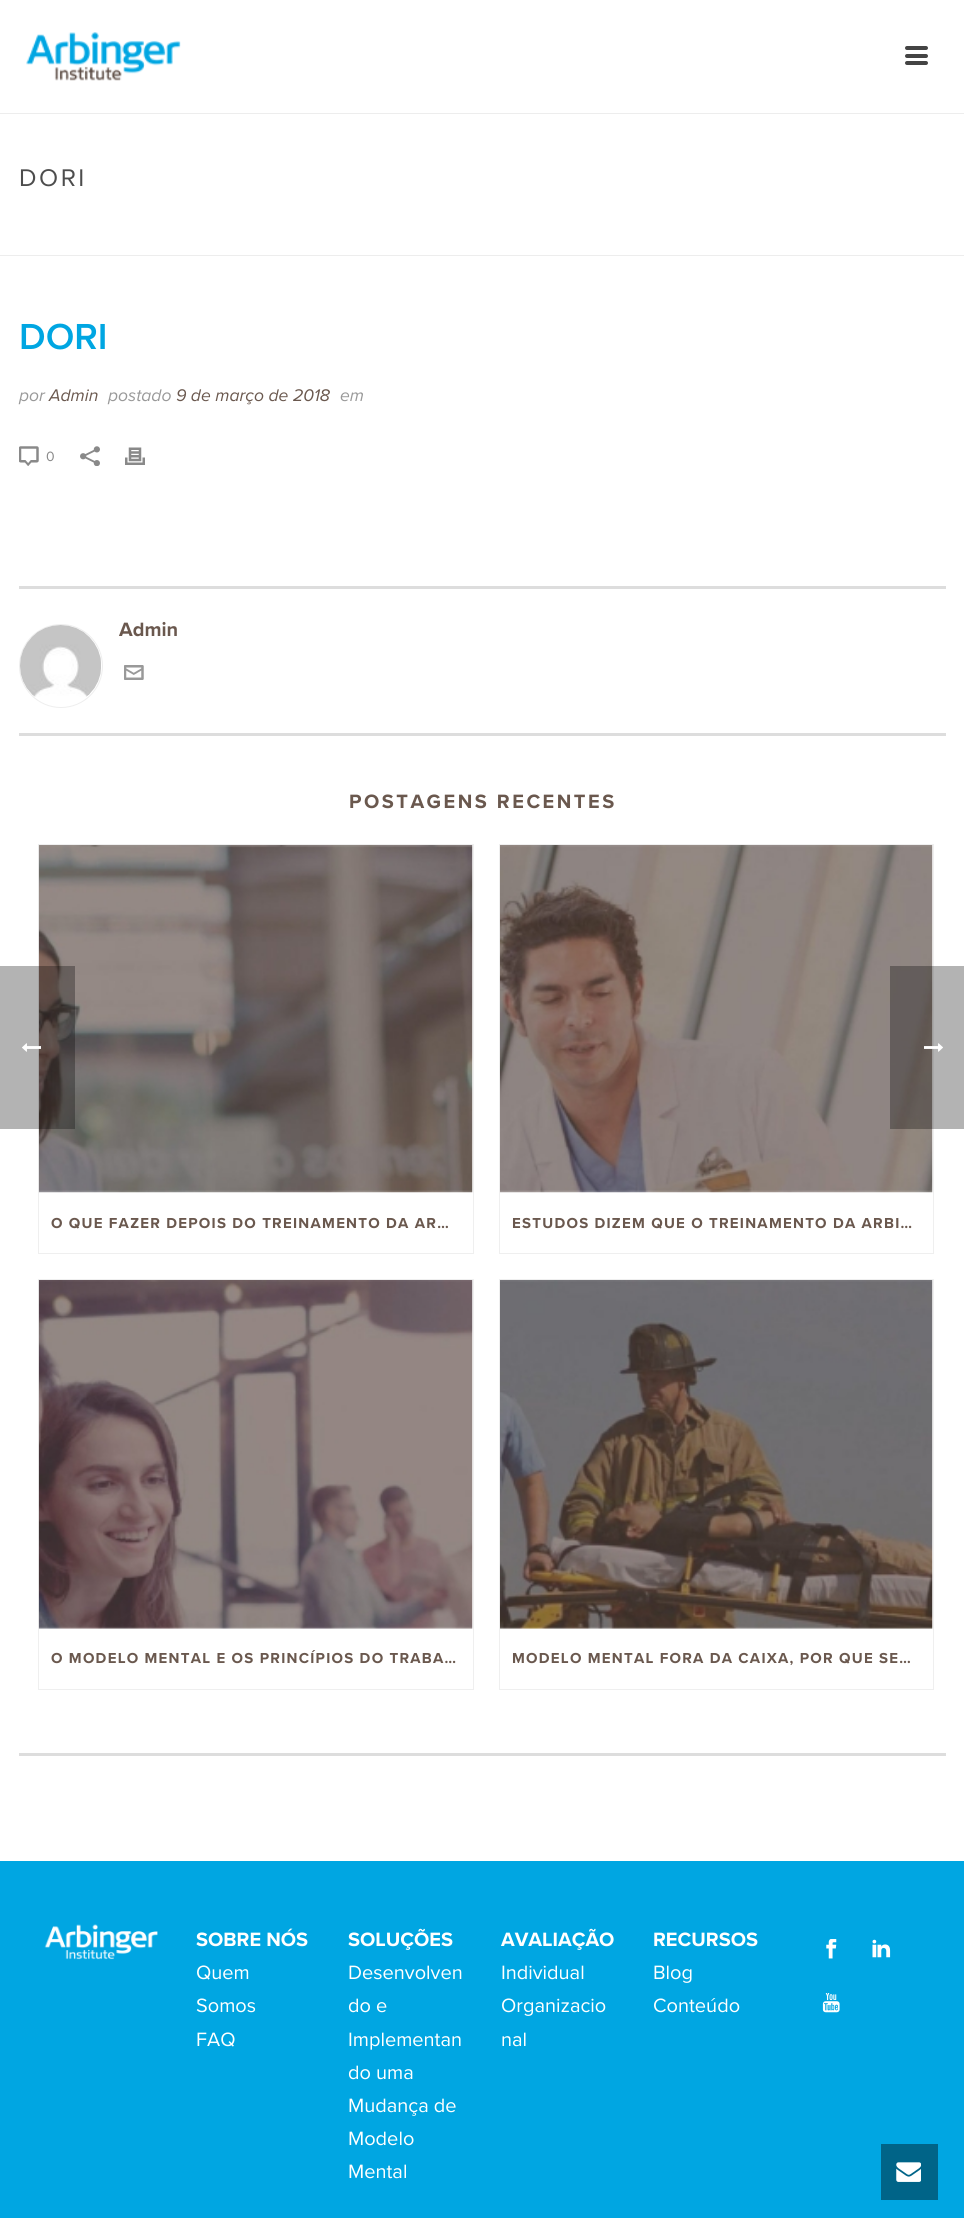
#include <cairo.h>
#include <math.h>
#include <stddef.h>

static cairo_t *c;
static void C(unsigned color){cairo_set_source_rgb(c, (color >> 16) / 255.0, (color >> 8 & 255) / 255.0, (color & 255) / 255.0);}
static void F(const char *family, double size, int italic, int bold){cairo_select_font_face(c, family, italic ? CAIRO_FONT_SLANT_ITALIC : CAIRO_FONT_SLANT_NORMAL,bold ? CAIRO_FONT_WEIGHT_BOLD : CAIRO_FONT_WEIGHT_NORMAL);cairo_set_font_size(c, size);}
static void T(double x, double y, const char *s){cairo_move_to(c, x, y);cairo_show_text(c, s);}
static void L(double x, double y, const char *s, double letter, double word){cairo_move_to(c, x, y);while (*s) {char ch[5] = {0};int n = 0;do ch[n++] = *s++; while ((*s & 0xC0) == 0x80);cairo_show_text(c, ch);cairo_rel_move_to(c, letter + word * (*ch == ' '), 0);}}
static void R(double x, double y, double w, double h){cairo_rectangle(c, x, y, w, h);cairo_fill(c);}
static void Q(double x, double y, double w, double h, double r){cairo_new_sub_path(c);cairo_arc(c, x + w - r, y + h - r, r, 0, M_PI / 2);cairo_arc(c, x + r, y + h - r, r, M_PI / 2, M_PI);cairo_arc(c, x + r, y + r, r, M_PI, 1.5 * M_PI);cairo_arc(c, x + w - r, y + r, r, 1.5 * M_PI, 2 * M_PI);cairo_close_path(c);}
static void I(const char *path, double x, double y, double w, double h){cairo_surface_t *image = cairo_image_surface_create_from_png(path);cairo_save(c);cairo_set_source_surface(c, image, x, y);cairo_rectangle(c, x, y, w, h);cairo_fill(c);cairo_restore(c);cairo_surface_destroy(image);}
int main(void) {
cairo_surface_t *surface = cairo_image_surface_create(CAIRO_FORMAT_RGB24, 964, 2218);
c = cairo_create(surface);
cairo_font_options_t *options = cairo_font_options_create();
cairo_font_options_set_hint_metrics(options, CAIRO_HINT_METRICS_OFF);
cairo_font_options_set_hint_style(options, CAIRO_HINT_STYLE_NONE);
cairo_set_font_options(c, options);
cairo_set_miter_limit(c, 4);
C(0xffffff);
cairo_paint(c);
C(0xededed);
R(0,255,964,1);
R(0,113,964,1);
I("1.png",26,32,155,49);
C(0x444444);
Q(905,46,23,4,2);
cairo_fill(c);
Q(905,54,23,4,2);
cairo_fill(c);
Q(905,61,23,4,2);
cairo_fill(c);
F("Proxima Nova",25,0,0);
C(0x4d4d4d);
L(19,186,"DORI",2.5,0);
F("Proxima Nova SemiBold",37.5,0,0);
C(0x00a6e2);
T(19,349,"DORI");
F("Proxima Nova",17.5,1,0);
C(0x999999);
T(19,401,"por");
C(0x6a584e);
T(49,401,"Admin");
C(0x999999);
T(108,401,"postado");
C(0x6a584e);
T(176,401,"9 de março de 2018");
C(0x999999);
T(340,401,"em");
I("2.png",19,446,20,20);
F("Proxima Nova",14,0,0);
C(0x898989);
T(46,461,"0");
I("3.png",80,446,20,20);
I("4.png",125,447,20,18);
C(0xdddddd);
R(19,586,927,3);
R(19,733,927,3);
cairo_arc(c,61,666,41.5,0,2 * M_PI);
C(0xeeeeee);
cairo_set_line_width(c,1);
cairo_stroke(c);
I("5.png",20,625,81,72);
F("Proxima Nova",20,0,1);
C(0x6a584e);
T(119,636,"Admin");
I("6.png",124,665,20,15);
C(0xdddddd);
R(19,1753,927,3);
C(0x6a584e);
L(349,808,"POSTAGENS RECENTES",2.5,0);
cairo_rectangle(c,38.5,844.5,435,409);
C(0xefefef);
cairo_stroke(c);
I("7.png",38,845,435,348);
F("Proxima Nova",15,0,1);
C(0x6a584e);
L(51,1228,"O QUE FAZER DEPOIS DO TREINAMENTO DA AR…",1.25,0);
cairo_rectangle(c,499.5,844.5,434,409);
C(0xefefef);
cairo_stroke(c);
I("8.png",500,845,433,348);
C(0x6a584e);
L(512,1228,"ESTUDOS DIZEM QUE O TREINAMENTO DA ARBI…",1.25,0);
cairo_rectangle(c,38.5,1279.5,435,410);
C(0xefefef);
cairo_stroke(c);
I("9.png",38,1280,435,349);
C(0x6a584e);
L(51,1663,"O MODELO MENTAL E OS PRINCÍPIOS DO TRABA…",1.25,0);
cairo_rectangle(c,499.5,1279.5,434,410);
C(0xefefef);
cairo_stroke(c);
I("10.png",500,1280,433,349);
C(0x6a584e);
L(512,1663,"MODELO MENTAL FORA DA CAIXA, POR QUE SE…",1.25,0);
C(0x00a6e2);
R(0,1861,964,357);
I("11.png",44,1924,114,36);
F("Proxima Nova",20,0,1);
C(0xffffff);
T(196,1946,"SOBRE NÓS");
F("Proxima Nova",20,0,0);
T(196,1979,"Quem");
T(196,2012,"Somos");
T(196,2046,"FAQ");
F("Proxima Nova",20,0,1);
T(348,1946,"SOLUÇÕES");
F("Proxima Nova",20,0,0);
T(348,1979,"Desenvolven");
T(348,2012,"do e");
T(348,2046,"Implementan");
T(348,2079,"do uma");
T(348,2112,"Mudança de");
T(348,2145,"Modelo");
T(348,2178,"Mental");
F("Proxima Nova",20,0,1);
T(501,1946,"AVALIAÇÃO");
F("Proxima Nova",20,0,0);
T(501,1979,"Individual");
T(501,2012,"Organizacio");
T(501,2046,"nal");
F("Proxima Nova",20,0,1);
T(653,1946,"RECURSOS");
F("Proxima Nova",20,0,0);
T(653,1979,"Blog");
T(653,2012,"Conteúdo");
I("12.png",826,1939,11,20);
I("13.png",872,1939,19,19);
I("14.png",822,1993,18,20);
cairo_set_source_rgba(c,0,0,0,0.3);
R(0,966,75,163);
I("15.png",22,1043,19,9);
R(890,966,74,163);
I("16.png",924,1043,19,9);
C(0x006488);
R(881,2144,57,56);
I("17.png",896,2162,25,20);
cairo_surface_write_to_png(surface, "o.png");
cairo_font_options_destroy(options);
cairo_destroy(c);
cairo_surface_destroy(surface);
return 0;
}
